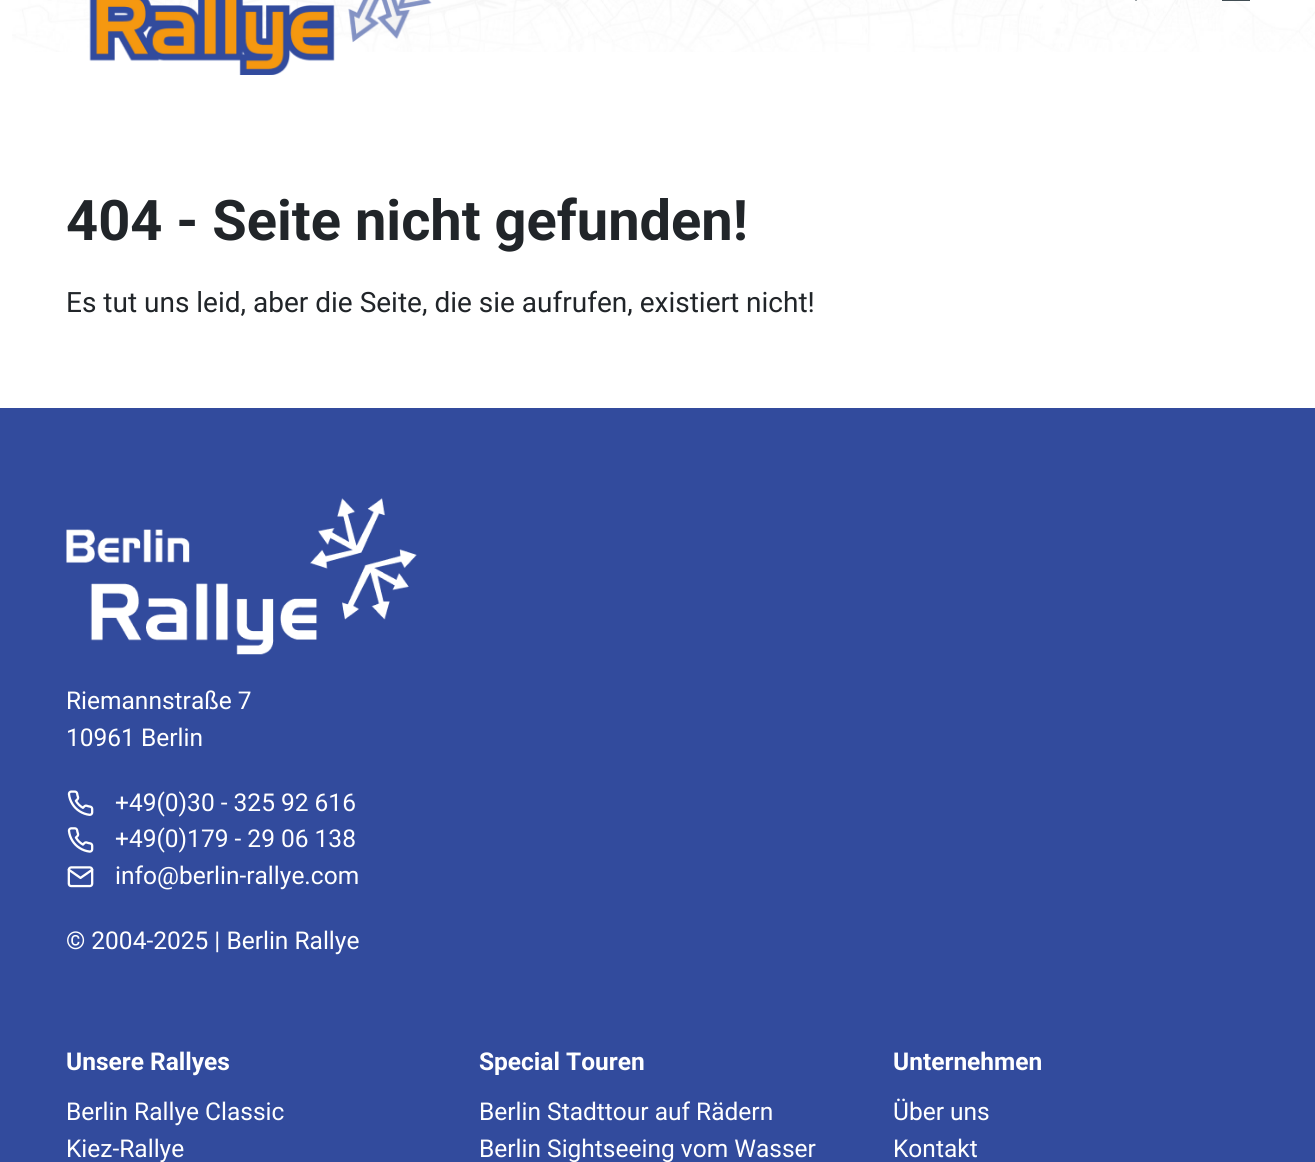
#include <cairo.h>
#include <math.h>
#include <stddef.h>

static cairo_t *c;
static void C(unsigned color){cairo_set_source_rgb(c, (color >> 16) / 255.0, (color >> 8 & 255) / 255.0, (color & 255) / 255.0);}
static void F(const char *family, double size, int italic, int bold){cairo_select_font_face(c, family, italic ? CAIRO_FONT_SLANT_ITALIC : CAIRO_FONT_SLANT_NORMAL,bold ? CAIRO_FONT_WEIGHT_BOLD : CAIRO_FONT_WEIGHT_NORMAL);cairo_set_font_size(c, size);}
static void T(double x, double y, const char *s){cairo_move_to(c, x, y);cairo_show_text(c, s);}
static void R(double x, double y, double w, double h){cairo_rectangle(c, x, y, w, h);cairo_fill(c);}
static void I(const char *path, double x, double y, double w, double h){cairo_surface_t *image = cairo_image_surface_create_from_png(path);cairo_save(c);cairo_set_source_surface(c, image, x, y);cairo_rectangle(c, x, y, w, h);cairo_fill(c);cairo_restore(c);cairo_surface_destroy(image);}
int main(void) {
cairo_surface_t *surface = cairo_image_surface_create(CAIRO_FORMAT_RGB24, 1315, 1162);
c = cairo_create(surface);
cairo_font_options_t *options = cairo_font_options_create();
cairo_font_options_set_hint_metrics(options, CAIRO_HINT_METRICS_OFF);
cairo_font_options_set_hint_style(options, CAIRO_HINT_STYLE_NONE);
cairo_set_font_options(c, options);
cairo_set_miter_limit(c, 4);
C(0xffffff);
cairo_paint(c);
I("1.png",12,0,1303,52);
I("2.png",89,0,343,75);
cairo_arc(c,1136,-12.5,11.5,0,2 * M_PI);
C(0x424e54);
cairo_set_line_width(c,2.3);
cairo_stroke(c);
cairo_new_path(c);
cairo_move_to(c,1136,-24);
cairo_curve_to(c,1142,-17.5,1142,-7,1136,-.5);
cairo_curve_to(c,1129.5,-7,1129.5,-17.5,1136,-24);
cairo_close_path(c);
cairo_set_line_cap(c,CAIRO_LINE_CAP_ROUND);
cairo_set_line_join(c,CAIRO_LINE_JOIN_ROUND);
cairo_stroke(c);
R(1222,0,28,1);
F("Roboto",56,0,1);
C(0x212529);
T(66,240,"404 - Seite nicht gefunden!");
F("Roboto",28,0,0);
T(66,312,"Es tut uns leid, aber die Seite, die sie aufrufen, existiert nicht!");
C(0x324b9d);
R(0,408,1315,754);
I("3.png",66,498,351,157);
F("Roboto",24.5,0,0);
C(0xffffff);
T(66,709,"Riemannstraße 7");
T(66,746,"10961 Berlin");
I("4.png",67,790,27,26);
T(115,811,"+49(0)30 - 325 92 616");
I("5.png",67,827,27,26);
T(115,847,"+49(0)179 - 29 06 138");
I("6.png",67,866,27,22);
T(115,884,"info@berlin-rallye.com");
T(66,949,"© 2004-2025 | Berlin Rallye");
F("Roboto",24.5,0,1);
T(66,1070,"Unsere Rallyes");
F("Roboto",24.5,0,0);
T(66,1120,"Berlin Rallye Classic");
T(66,1157,"Kiez-Rallye");
F("Roboto",24.5,0,1);
T(479,1070,"Special Touren");
F("Roboto",24.5,0,0);
T(479,1120,"Berlin Stadttour auf Rädern");
T(479,1157,"Berlin Sightseeing vom Wasser");
F("Roboto",24.5,0,1);
T(893,1070,"Unternehmen");
F("Roboto",24.5,0,0);
T(893,1120,"Über uns");
T(893,1157,"Kontakt");
cairo_surface_write_to_png(surface, "o.png");
cairo_font_options_destroy(options);
cairo_destroy(c);
cairo_surface_destroy(surface);
return 0;
}
